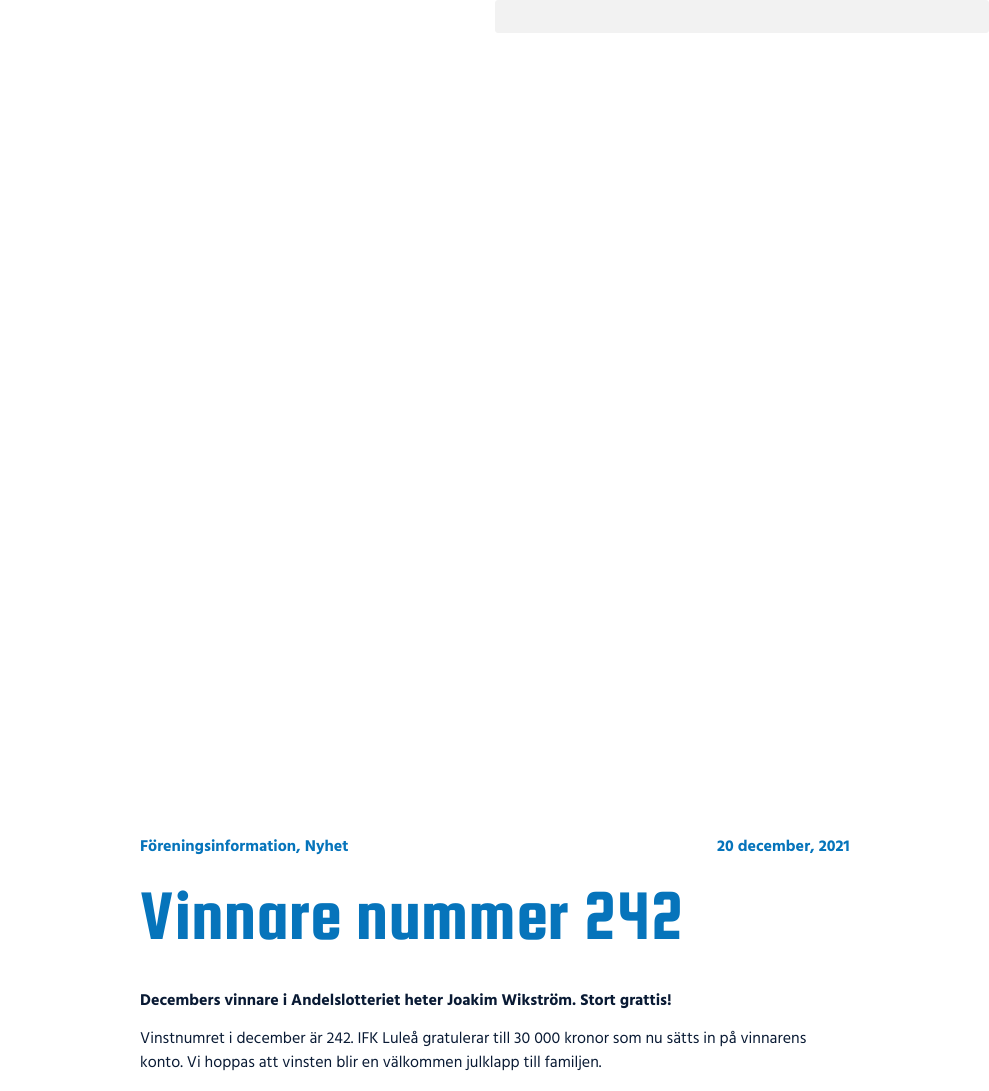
#include <cairo.h>
#include <math.h>
#include <stddef.h>

static cairo_t *c;
static void C(unsigned color){cairo_set_source_rgb(c, (color >> 16) / 255.0, (color >> 8 & 255) / 255.0, (color & 255) / 255.0);}
static void F(const char *family, double size, int italic, int bold){cairo_select_font_face(c, family, italic ? CAIRO_FONT_SLANT_ITALIC : CAIRO_FONT_SLANT_NORMAL,bold ? CAIRO_FONT_WEIGHT_BOLD : CAIRO_FONT_WEIGHT_NORMAL);cairo_set_font_size(c, size);}
static void T(double x, double y, const char *s){cairo_move_to(c, x, y);cairo_show_text(c, s);}
static void Q(double x, double y, double w, double h, double r){cairo_new_sub_path(c);cairo_arc(c, x + w - r, y + h - r, r, 0, M_PI / 2);cairo_arc(c, x + r, y + h - r, r, M_PI / 2, M_PI);cairo_arc(c, x + r, y + r, r, M_PI, 1.5 * M_PI);cairo_arc(c, x + w - r, y + r, r, 1.5 * M_PI, 2 * M_PI);cairo_close_path(c);}
int main(void) {
cairo_surface_t *surface = cairo_image_surface_create(CAIRO_FORMAT_RGB24, 989, 1091);
c = cairo_create(surface);
cairo_font_options_t *options = cairo_font_options_create();
cairo_font_options_set_hint_metrics(options, CAIRO_HINT_METRICS_OFF);
cairo_font_options_set_hint_style(options, CAIRO_HINT_STYLE_NONE);
cairo_set_font_options(c, options);
cairo_set_miter_limit(c, 4);
C(0xffffff);
cairo_paint(c);
C(0xf2f2f2);
Q(495,0,494,33,3);
cairo_fill(c);
F("Hind",16,0,1);
C(0x0674bb);
T(140,851,"Föreningsinformation, Nyhet");
T(717,851,"20 december, 2021");
F("Squada One",72,0,0);
T(140,939,"Vinnare nummer 242");
F("Hind",16,0,1);
C(0x091a34);
T(140,1005,"Decembers vinnare i Andelslotteriet heter Joakim Wikström. Stort grattis!");
F("Hind",16,0,0);
T(140,1043,"Vinstnumret i december är 242. IFK Luleå gratulerar till 30 000 kronor som nu sätts in på vinnarens");
T(140,1067,"konto. Vi hoppas att vinsten blir en välkommen julklapp till familjen.");
cairo_surface_write_to_png(surface, "o.png");
cairo_font_options_destroy(options);
cairo_destroy(c);
cairo_surface_destroy(surface);
return 0;
}
